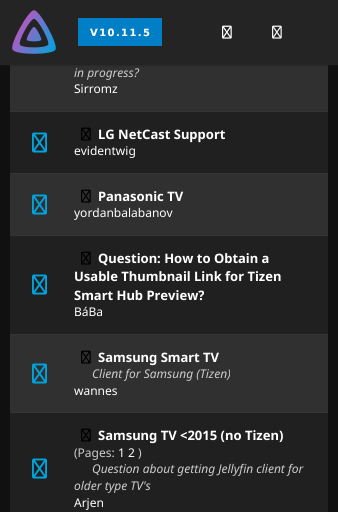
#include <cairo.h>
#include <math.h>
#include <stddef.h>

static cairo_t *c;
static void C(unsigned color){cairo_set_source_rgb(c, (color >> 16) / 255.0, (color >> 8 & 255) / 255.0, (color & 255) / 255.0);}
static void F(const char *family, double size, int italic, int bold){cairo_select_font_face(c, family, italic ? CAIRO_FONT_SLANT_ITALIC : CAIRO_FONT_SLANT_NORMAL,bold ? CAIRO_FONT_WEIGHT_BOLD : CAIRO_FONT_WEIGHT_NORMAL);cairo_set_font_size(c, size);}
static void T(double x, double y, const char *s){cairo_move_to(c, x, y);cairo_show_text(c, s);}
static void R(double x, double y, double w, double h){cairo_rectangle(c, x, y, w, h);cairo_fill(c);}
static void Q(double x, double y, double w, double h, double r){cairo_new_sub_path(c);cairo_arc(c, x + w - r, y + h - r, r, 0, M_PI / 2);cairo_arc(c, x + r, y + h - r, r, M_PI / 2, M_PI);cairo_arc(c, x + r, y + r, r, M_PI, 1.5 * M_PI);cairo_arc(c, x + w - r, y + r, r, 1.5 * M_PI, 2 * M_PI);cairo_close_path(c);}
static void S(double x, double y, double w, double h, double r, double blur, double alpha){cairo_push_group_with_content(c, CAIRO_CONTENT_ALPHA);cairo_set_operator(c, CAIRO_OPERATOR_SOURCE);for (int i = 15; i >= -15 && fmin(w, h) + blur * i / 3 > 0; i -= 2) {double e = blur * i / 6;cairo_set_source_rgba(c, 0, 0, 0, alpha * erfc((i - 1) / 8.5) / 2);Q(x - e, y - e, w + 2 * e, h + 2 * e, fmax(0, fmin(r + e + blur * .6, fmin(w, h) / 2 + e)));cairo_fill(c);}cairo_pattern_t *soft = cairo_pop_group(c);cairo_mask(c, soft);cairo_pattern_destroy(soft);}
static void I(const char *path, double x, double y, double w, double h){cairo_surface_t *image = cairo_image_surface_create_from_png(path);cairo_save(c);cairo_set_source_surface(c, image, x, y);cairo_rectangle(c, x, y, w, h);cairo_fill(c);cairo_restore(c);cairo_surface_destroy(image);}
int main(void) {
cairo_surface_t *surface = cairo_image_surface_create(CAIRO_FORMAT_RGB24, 338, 512);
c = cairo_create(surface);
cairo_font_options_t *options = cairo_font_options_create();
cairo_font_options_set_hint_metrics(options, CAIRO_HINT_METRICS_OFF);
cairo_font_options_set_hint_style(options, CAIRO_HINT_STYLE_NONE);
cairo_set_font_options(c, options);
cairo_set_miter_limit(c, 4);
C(0x101010);
cairo_paint(c);
C(0x303030);
R(10,65,318,46);
C(0x202020);
S(0,0,338,65,0,1.5,1);
C(0x242424);
R(0,0,338,65);
I("1.png",12,10,44,44);
I("2.png",78,18,84,28);
I("3.png",222,25,10,14);
I("4.png",272,25,10,14);
C(0x353535);
R(10,111,318,1);
F("Noto Sans",12,1,0);
C(0xcccccc);
T(74,77,"in progress?");
F("Noto Sans",12,0,0);
C(0xffffff);
T(74,93,"Sirromz");
C(0x202020);
R(10,112,318,61);
C(0x353535);
R(10,173,318,1);
I("5.png",32,132,15,21);
I("6.png",81,127,10,14);
F("Noto Sans",13,0,1);
C(0xffffff);
T(98,139,"LG NetCast Support");
F("Noto Sans",12,0,0);
T(74,155,"evidentwig");
C(0x303030);
R(10,174,318,61);
C(0x353535);
R(10,235,318,1);
I("7.png",32,194,15,21);
I("8.png",81,189,10,14);
F("Noto Sans",13,0,1);
C(0xffffff);
T(98,201,"Panasonic TV");
F("Noto Sans",12,0,0);
T(74,217,"yordanbalabanov");
C(0x202020);
R(10,236,318,98);
C(0x353535);
R(10,334,318,1);
I("5.png",32,274,15,21);
I("6.png",81,251,10,14);
F("Noto Sans",13,0,1);
C(0xffffff);
T(98,263,"Question: How to Obtain a");
T(74,281,"Usable Thumbnail Link for Tizen");
T(74,300,"Smart Hub Preview?");
F("Noto Sans",12,0,0);
T(74,316,"BáBa");
C(0x303030);
R(10,335,318,77);
C(0x353535);
R(10,412,318,1);
I("7.png",32,363,15,21);
I("8.png",81,350,10,14);
F("Noto Sans",13,0,1);
C(0xffffff);
T(98,362,"Samsung Smart TV");
F("Noto Sans",12,1,0);
C(0xcccccc);
T(92,378,"Client for Samsung (Tizen)");
F("Noto Sans",12,0,0);
C(0xffffff);
T(74,395,"wannes");
C(0x202020);
R(10,413,318,99);
I("5.png",32,458,15,21);
I("6.png",81,428,10,14);
F("Noto Sans",13,0,1);
C(0xffffff);
T(98,440,"Samsung TV <2015 (no Tizen)");
F("Noto Sans",12,0,0);
C(0xcccccc);
T(74,457,"(Pages:");
C(0xffffff);
T(118,457,"1 2");
C(0xcccccc);
T(138,457,")");
F("Noto Sans",12,1,0);
T(92,473,"Question about getting Jellyfin client for");
T(74,490,"older type TV's");
F("Noto Sans",12,0,0);
C(0xffffff);
T(74,507,"Arjen");
cairo_surface_write_to_png(surface, "o.png");
cairo_font_options_destroy(options);
cairo_destroy(c);
cairo_surface_destroy(surface);
return 0;
}
